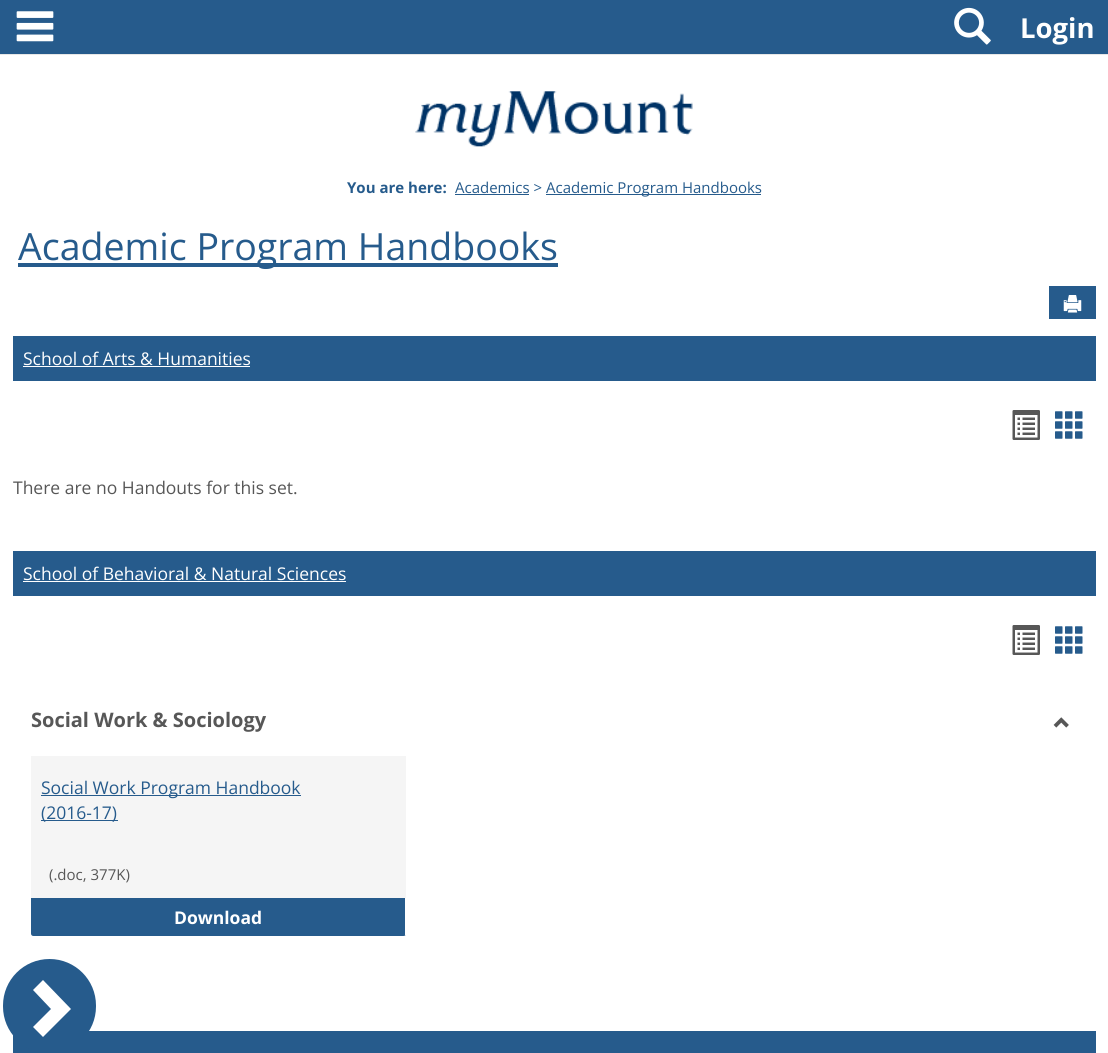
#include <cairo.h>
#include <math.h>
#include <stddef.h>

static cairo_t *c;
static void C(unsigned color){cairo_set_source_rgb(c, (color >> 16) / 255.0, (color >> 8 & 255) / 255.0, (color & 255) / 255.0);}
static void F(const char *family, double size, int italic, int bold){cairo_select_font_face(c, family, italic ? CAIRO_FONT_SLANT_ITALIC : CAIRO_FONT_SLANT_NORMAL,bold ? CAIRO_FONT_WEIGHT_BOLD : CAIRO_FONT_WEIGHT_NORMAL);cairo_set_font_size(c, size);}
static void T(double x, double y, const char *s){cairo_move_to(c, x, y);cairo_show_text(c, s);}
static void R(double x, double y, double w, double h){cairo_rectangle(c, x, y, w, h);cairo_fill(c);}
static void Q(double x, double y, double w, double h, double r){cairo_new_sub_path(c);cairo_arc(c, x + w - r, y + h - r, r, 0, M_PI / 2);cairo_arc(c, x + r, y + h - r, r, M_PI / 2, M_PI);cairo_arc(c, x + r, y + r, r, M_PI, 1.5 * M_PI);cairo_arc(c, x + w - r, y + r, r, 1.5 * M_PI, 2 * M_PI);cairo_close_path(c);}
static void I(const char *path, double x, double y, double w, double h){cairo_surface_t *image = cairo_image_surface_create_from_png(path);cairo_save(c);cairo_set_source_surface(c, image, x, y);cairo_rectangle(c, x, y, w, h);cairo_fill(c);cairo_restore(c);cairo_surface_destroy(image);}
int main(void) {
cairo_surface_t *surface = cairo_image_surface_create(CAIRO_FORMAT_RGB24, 1108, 1053);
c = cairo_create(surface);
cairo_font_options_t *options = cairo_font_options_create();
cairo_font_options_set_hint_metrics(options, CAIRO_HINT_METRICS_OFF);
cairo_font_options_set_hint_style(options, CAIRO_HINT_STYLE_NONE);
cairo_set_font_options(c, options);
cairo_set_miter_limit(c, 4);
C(0xffffff);
cairo_paint(c);
C(0x265b8c);
R(0,0,1108,54);
C(0xe7e7e7);
R(0,54,1108,1);
I("1.png",16,11,38,31);
I("2.png",954,7,37,38);
F("Open Sans",27.5,0,1);
C(0xffffff);
T(1020,38,"Login");
I("3.png",415,91,278,56);
F("Open Sans",15,0,1);
C(0x265b8c);
T(347,193,"You are here:");
F("Open Sans",15,0,0);
T(455,193,"Academics >");
R(455,194,74,1);
R(546,194,215,1);
T(546,193,"Academic Program Handbooks");
R(18,263,540,4);
F("Open Sans",37.5,0,0);
T(18,260,"Academic Program Handbooks");
R(1049,286,47,33);
I("4.png",1063,295,19,18);
R(13,336,1083,45);
F("Open Sans",17.5,0,0);
C(0xffffff);
T(23,365,"School of Arts & Humanities");
R(23,366,227,1);
I("5.png",1012,410,28,30);
I("6.png",1055,411,28,28);
C(0x575757);
T(13,494,"There are no Handouts for this set.");
C(0x265b8c);
R(13,551,1083,45);
C(0xffffff);
T(23,580,"School of Behavioral & Natural Sciences");
R(23,581,323,1);
I("5.png",1012,625,28,30);
I("6.png",1055,626,28,28);
F("Open Sans",20,0,1);
C(0x575757);
T(31,727,"Social Work & Sociology");
I("7.png",1053,717,16,11);
C(0xf5f5f5);
cairo_new_path(c);
cairo_move_to(c,31,756);
cairo_line_to(c,406,756);
cairo_line_to(c,406,933.5);
cairo_curve_to(c,406,935,405,936,403.5,936);
cairo_line_to(c,33.5,936);
cairo_curve_to(c,32,936,31,935,31,933.5);
cairo_close_path(c);
cairo_fill(c);
C(0x265b8c);
R(41,795,260,1);
F("Open Sans",17.5,0,0);
T(41,794,"Social Work Program Handbook");
R(41,820,77,1);
T(41,819,"(2016-17)");
F("Open Sans",15,0,0);
C(0x575757);
T(49,880,"(.doc, 377K)");
C(0x265b8c);
cairo_new_path(c);
cairo_move_to(c,31,898);
cairo_line_to(c,406,898);
cairo_line_to(c,406,933.5);
cairo_curve_to(c,406,935,405,936,403.5,936);
cairo_line_to(c,33.5,936);
cairo_curve_to(c,32,936,31,935,31,933.5);
cairo_close_path(c);
cairo_fill(c);
C(0xffffff);
R(405,898,1,37);
F("Open Sans",17.5,0,1);
T(174,924,"Download");
C(0x265b8c);
R(13,1031,1083,22);
Q(3,959,93,94,46.5);
cairo_fill(c);
C(0xffffff);
cairo_new_path(c);
cairo_move_to(c,43,1037);
cairo_line_to(c,33,1027);
cairo_line_to(c,51,1009);
cairo_line_to(c,33,990);
cairo_line_to(c,43,980);
cairo_line_to(c,71,1009);
cairo_close_path(c);
cairo_fill(c);
cairo_surface_write_to_png(surface, "o.png");
cairo_font_options_destroy(options);
cairo_destroy(c);
cairo_surface_destroy(surface);
return 0;
}
